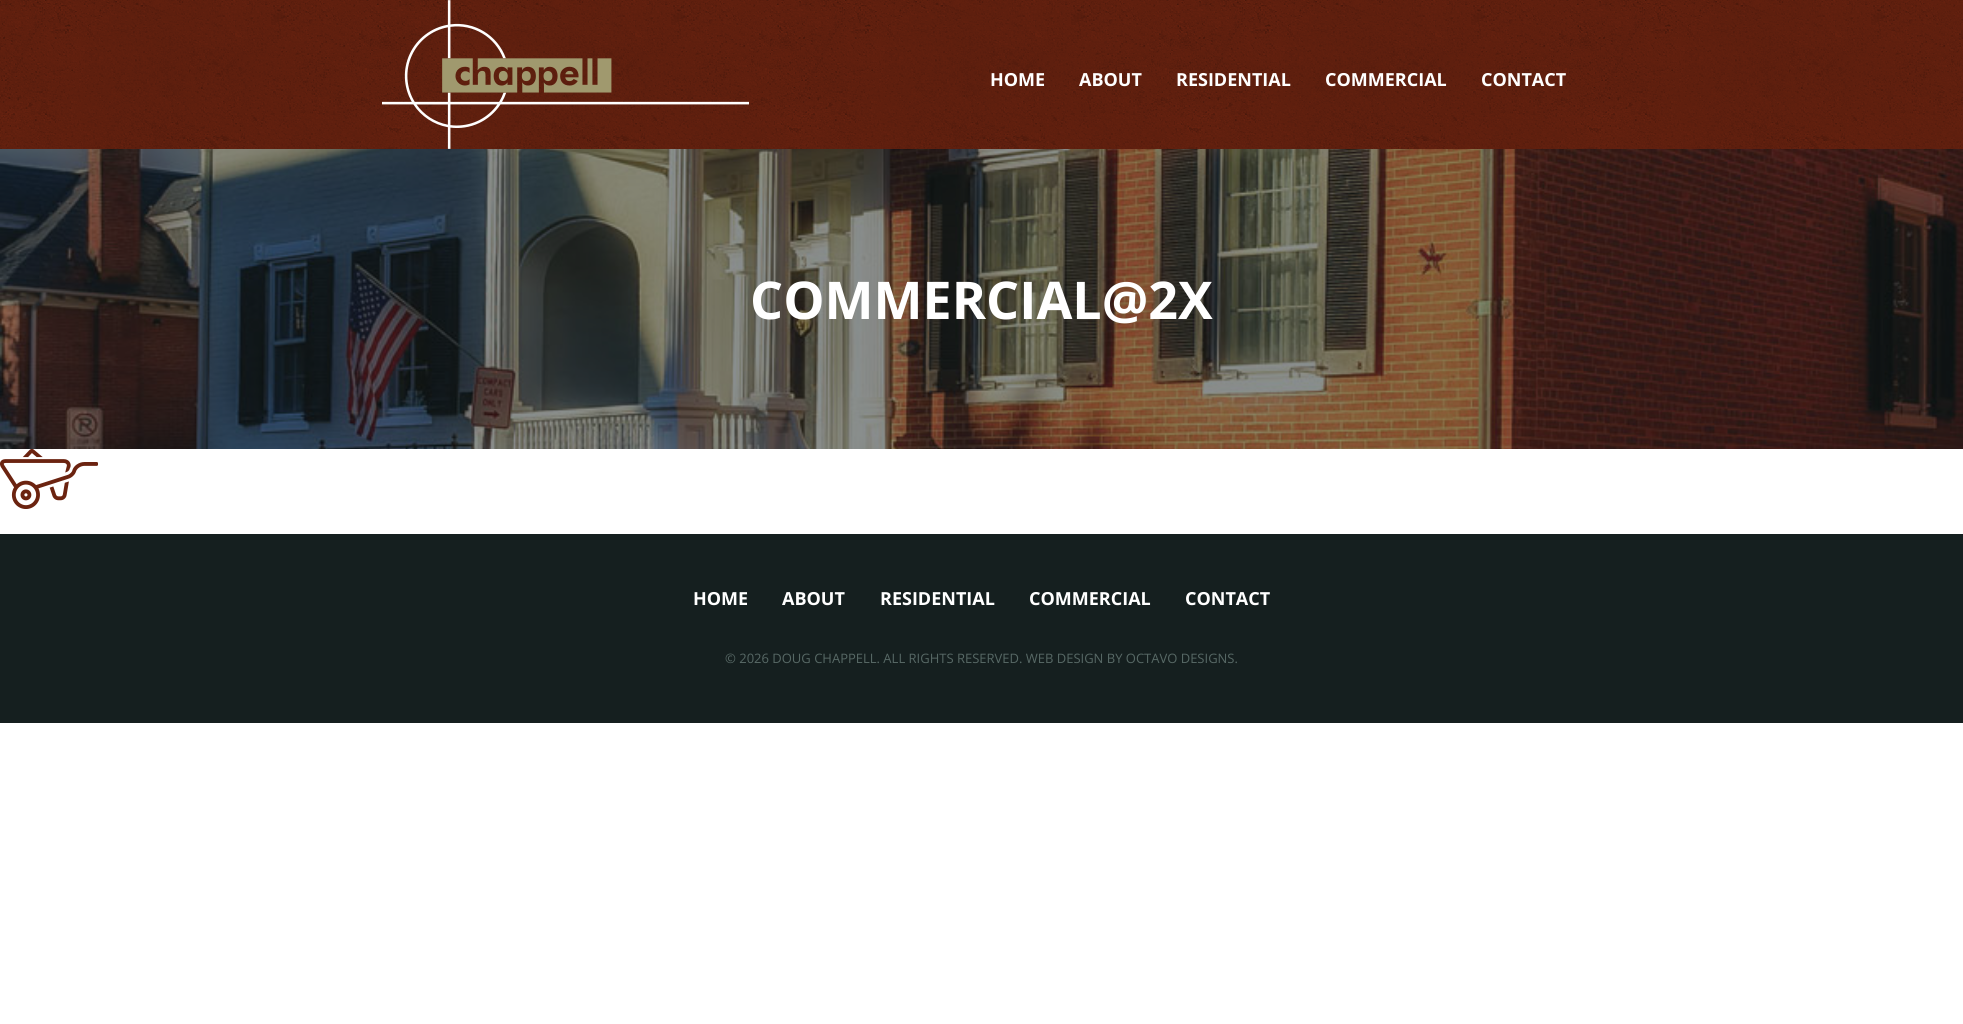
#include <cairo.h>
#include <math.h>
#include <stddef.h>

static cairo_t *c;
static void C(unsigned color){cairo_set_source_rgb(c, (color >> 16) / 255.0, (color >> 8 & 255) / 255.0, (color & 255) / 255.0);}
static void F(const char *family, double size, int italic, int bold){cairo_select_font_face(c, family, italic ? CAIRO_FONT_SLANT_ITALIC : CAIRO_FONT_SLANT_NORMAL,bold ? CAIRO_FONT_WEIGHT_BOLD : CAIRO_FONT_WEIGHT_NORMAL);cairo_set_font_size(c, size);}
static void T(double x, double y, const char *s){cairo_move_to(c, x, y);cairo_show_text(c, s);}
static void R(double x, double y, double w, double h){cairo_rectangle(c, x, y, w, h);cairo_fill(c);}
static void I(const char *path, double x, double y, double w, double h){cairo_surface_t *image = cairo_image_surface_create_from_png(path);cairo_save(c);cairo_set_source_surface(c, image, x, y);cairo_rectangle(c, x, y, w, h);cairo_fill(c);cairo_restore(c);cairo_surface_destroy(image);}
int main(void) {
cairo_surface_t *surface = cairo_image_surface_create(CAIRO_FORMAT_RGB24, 1963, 1024);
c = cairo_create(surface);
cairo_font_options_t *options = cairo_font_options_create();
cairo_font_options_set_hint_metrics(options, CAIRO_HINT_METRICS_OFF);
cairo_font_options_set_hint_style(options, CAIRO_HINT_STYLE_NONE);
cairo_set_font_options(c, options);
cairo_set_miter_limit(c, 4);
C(0xffffff);
cairo_paint(c);
C(0x6b2310);
R(0,0,1963,149);
I("1.png",0,0,1963,149);
I("2.png",382,0,367,149);
F("Open Sans",18,0,1);
C(0xffffff);
T(990,86,"HOME");
T(1079,86,"ABOUT");
T(1176,86,"RESIDENTIAL");
T(1325,86,"COMMERCIAL");
T(1481,86,"CONTACT");
C(0x151f1f);
R(0,149,1963,300);
I("3.png",0,149,1963,300);
F("Open Sans",52,0,1);
C(0xffffff);
T(750,319,"COMMERCIAL@2X");
I("4.png",0,449,98,60);
C(0x151f1f);
R(0,534,1963,189);
F("Open Sans",18,0,1);
C(0xffffff);
T(693,605,"HOME");
T(782,605,"ABOUT");
T(880,605,"RESIDENTIAL");
T(1029,605,"COMMERCIAL");
T(1185,605,"CONTACT");
F("Open Sans",13,0,0);
C(0x576865);
T(725,663,"© 2026 DOUG CHAPPELL. ALL RIGHTS RESERVED. WEB DESIGN BY OCTAVO DESIGNS.");
cairo_surface_write_to_png(surface, "o.png");
cairo_font_options_destroy(options);
cairo_destroy(c);
cairo_surface_destroy(surface);
return 0;
}
